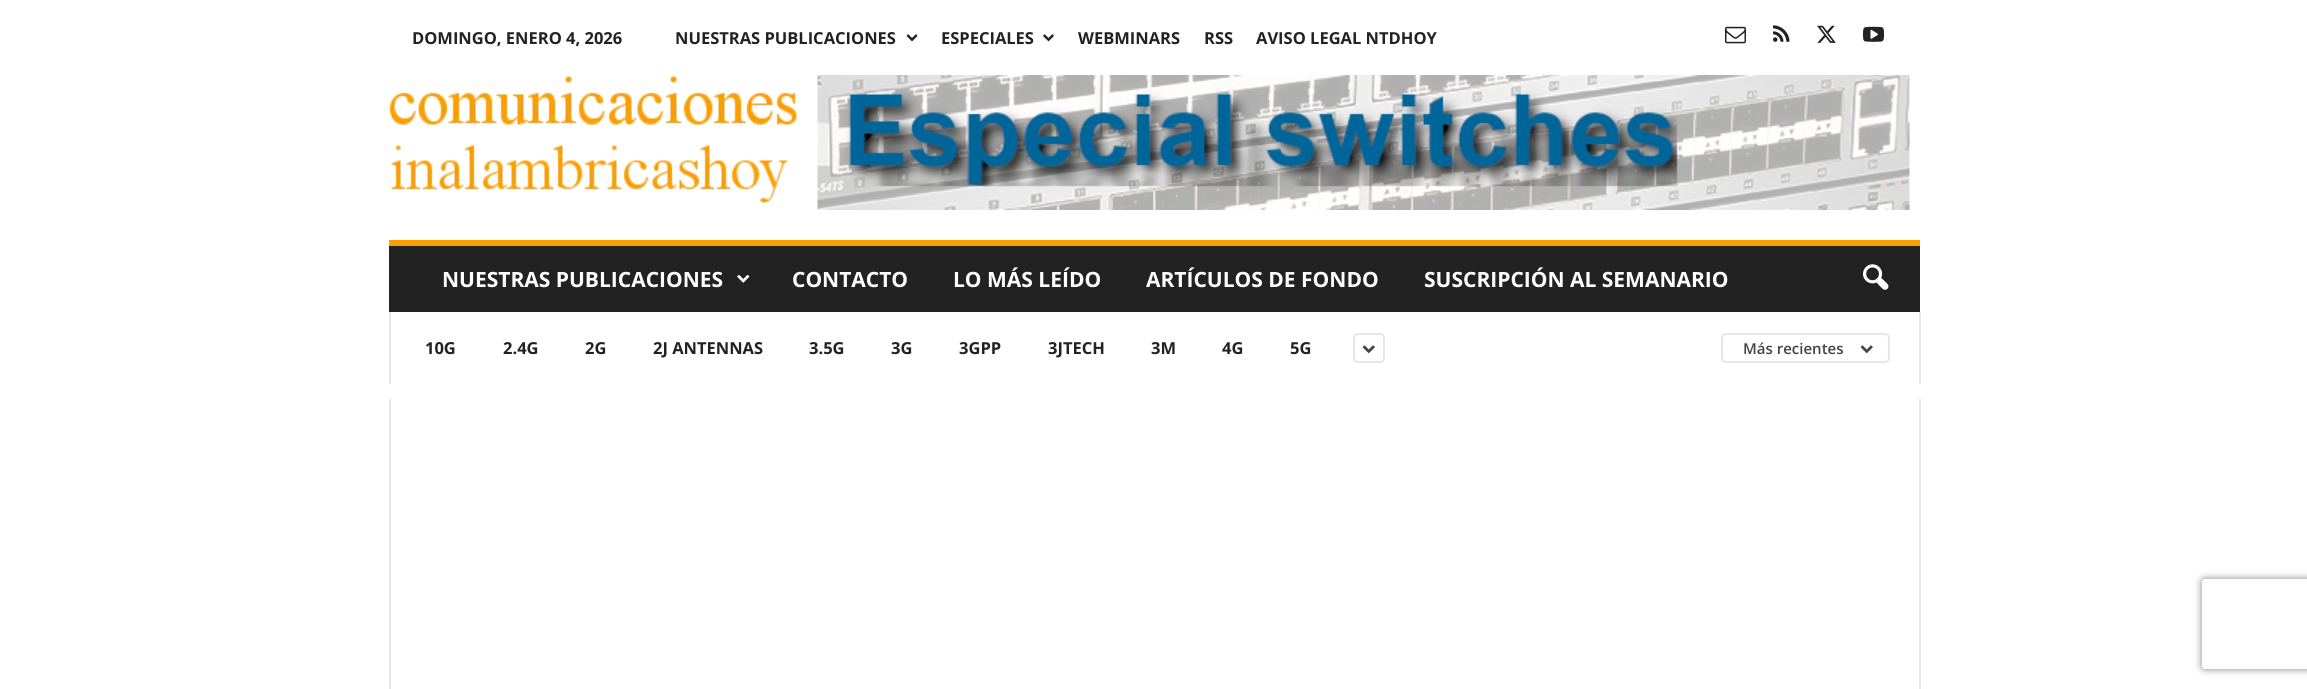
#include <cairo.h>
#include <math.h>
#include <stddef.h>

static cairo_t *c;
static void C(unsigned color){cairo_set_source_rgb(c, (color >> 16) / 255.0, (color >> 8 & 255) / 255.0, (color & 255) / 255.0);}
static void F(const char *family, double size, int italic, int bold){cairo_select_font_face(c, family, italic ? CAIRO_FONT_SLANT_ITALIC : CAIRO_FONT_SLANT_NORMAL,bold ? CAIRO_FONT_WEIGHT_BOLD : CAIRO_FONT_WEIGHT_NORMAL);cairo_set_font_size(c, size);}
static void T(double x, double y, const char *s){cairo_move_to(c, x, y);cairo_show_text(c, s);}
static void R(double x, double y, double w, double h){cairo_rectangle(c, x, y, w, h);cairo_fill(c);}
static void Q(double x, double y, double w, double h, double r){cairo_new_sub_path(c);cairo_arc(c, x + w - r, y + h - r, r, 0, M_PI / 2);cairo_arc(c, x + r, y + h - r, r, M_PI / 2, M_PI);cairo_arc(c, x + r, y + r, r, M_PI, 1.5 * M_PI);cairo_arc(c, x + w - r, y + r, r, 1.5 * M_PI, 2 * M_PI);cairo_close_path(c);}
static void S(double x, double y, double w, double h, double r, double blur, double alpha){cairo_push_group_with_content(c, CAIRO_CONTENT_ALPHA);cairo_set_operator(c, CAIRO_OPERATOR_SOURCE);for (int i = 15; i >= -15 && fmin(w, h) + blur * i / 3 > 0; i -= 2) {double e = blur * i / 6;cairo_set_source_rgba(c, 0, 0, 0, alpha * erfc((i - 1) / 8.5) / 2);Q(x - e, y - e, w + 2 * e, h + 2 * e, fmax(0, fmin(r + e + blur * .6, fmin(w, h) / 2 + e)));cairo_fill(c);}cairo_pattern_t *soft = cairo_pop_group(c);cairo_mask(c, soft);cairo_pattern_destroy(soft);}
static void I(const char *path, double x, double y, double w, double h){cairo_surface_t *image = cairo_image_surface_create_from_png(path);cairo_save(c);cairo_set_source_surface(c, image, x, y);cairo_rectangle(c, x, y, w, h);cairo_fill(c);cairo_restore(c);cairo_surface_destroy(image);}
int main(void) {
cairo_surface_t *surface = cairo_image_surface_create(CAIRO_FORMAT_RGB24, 2307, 689);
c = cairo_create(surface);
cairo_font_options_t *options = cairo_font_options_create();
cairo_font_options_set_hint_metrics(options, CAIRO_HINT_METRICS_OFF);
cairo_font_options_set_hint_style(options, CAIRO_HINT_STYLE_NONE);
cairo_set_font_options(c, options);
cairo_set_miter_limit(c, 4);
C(0xffffff);
cairo_paint(c);
F("Open Sans",16.5,0,1);
C(0x222222);
T(412,44,"DOMINGO, ENERO 4, 2026");
T(675,44,"NUESTRAS PUBLICACIONES");
I("1.png",906,34,12,8);
T(941,44,"ESPECIALES");
I("2.png",1043,34,11,8);
T(1078,44,"WEBMINARS");
T(1204,44,"RSS");
T(1256,44,"AVISO LEGAL NTDHOY");
I("3.png",1725,26,21,18);
I("4.png",1773,25,17,17);
I("5.png",1817,25,19,18);
I("6.png",1863,26,21,16);
I("7.png",389,76,408,127);
I("8.png",817,75,1093,135);
R(389,246,1531,66);
C(0xfca000);
R(389,240,1531,6);
F("Open Sans",21,0,1);
C(0xffffff);
T(442,287,"NUESTRAS PUBLICACIONES");
I("9.png",737,274,13,9);
T(792,287,"CONTACTO");
T(953,287,"LO MÁS LEÍDO");
T(1146,287,"ARTÍCULOS DE FONDO");
T(1424,287,"SUSCRIPCIÓN AL SEMANARIO");
I("10.png",1863,264,26,26);
C(0xe6e6e6);
R(389,312,2,72);
F("Open Sans",16.5,0,1);
C(0x222222);
T(425,354,"10G");
T(503,354,"2.4G");
T(585,354,"2G");
T(653,354,"2J ANTENNAS");
T(809,354,"3.5G");
T(891,354,"3G");
T(959,354,"3GPP");
T(1048,354,"3JTECH");
T(1151,354,"3M");
T(1222,354,"4G");
T(1290,354,"5G");
Q(1354,334,30,28,4);
C(0xe6e6e6);
cairo_stroke(c);
I("11.png",1362,345,13,9);
Q(1722,334,167,28,4);
cairo_stroke(c);
F("Open Sans SemiBold",15,0,0);
C(0x444444);
T(1743,354,"Más recientes");
I("11.png",1860,345,13,9);
C(0xe6e6e6);
R(1919,312,2,72);
R(389,399,2,290);
R(1919,399,2,290);
cairo_save(c);
cairo_set_fill_rule(c,CAIRO_FILL_RULE_EVEN_ODD);
cairo_new_path(c);
cairo_move_to(c,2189,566);
cairo_line_to(c,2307,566);
cairo_line_to(c,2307,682);
cairo_line_to(c,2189,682);
cairo_close_path(c);
cairo_move_to(c,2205,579);
cairo_line_to(c,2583,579);
cairo_curve_to(c,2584.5,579,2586,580.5,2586,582);
cairo_line_to(c,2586,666);
cairo_curve_to(c,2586,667.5,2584.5,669,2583,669);
cairo_line_to(c,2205,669);
cairo_curve_to(c,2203.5,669,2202,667.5,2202,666);
cairo_line_to(c,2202,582);
cairo_curve_to(c,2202,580.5,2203.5,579,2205,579);
cairo_close_path(c);
cairo_clip(c);
C(0x808080);
S(2202,579,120,90,3,4,1);
cairo_restore(c);
cairo_surface_write_to_png(surface, "o.png");
cairo_font_options_destroy(options);
cairo_destroy(c);
cairo_surface_destroy(surface);
return 0;
}
